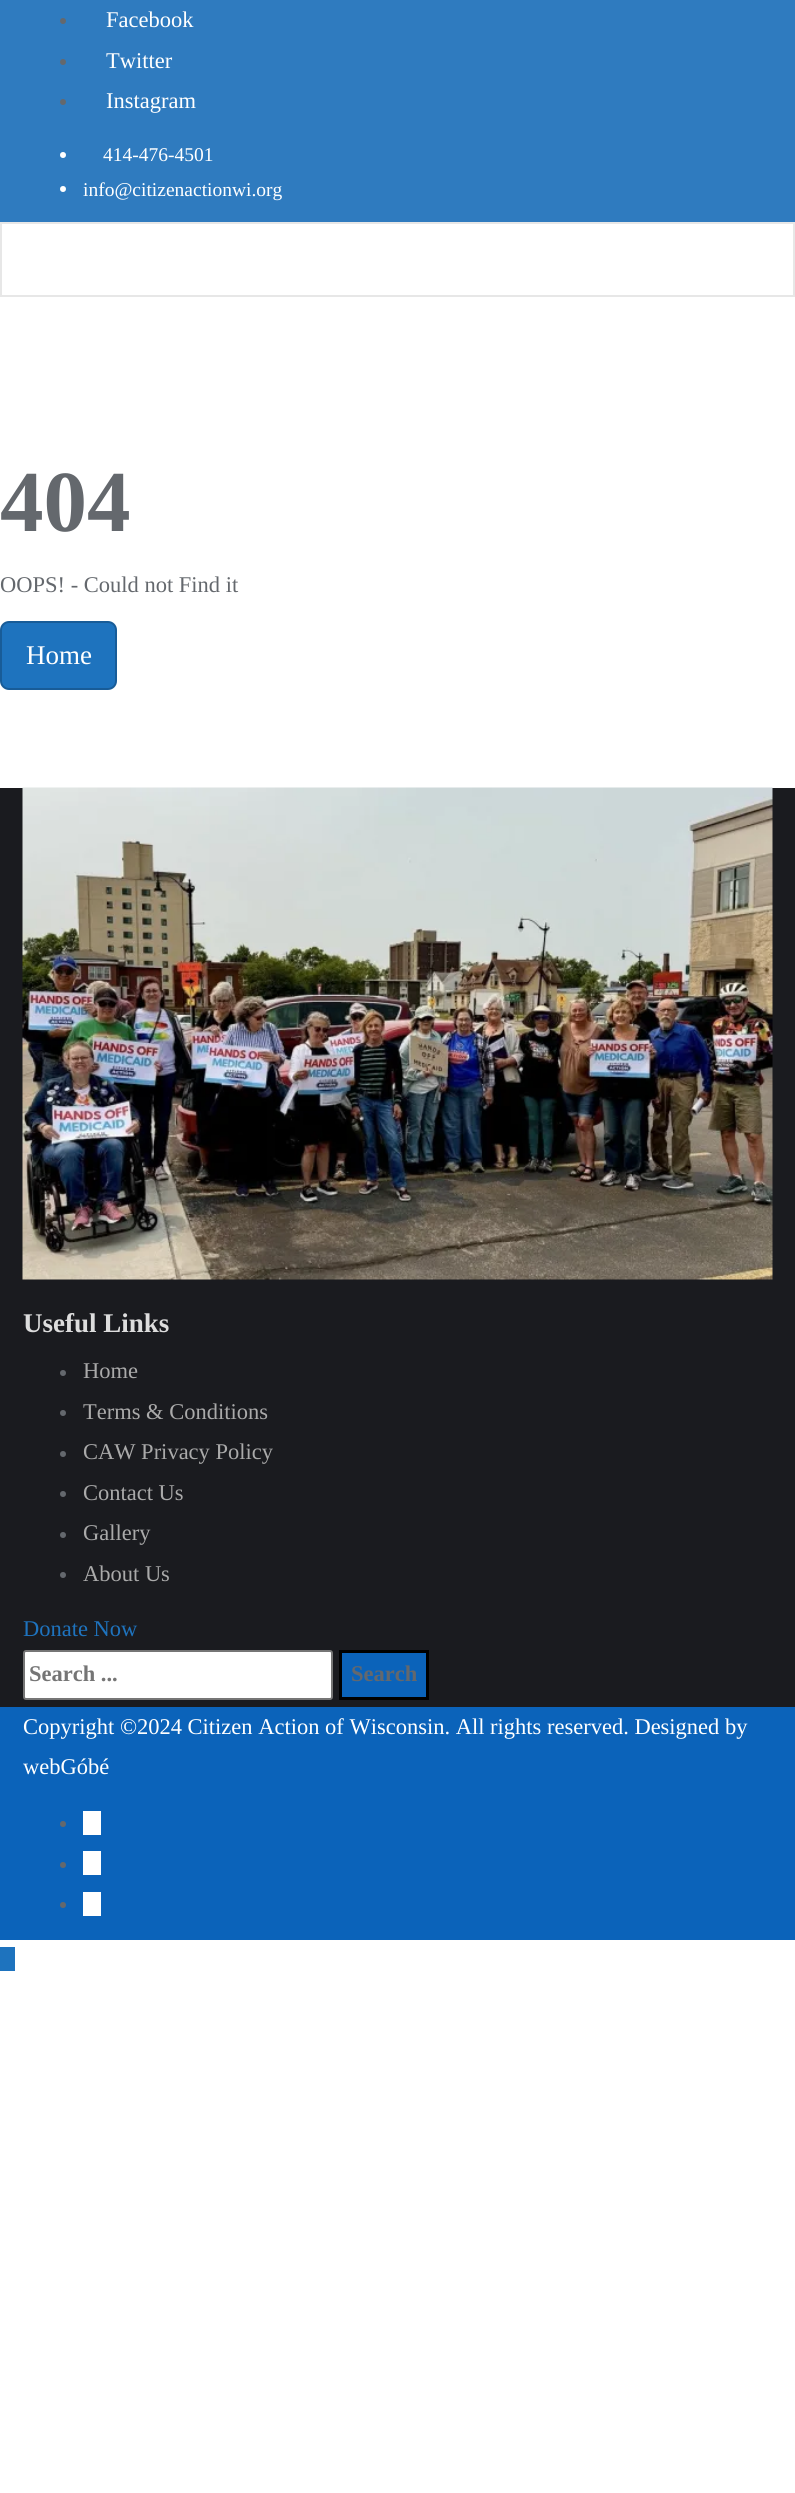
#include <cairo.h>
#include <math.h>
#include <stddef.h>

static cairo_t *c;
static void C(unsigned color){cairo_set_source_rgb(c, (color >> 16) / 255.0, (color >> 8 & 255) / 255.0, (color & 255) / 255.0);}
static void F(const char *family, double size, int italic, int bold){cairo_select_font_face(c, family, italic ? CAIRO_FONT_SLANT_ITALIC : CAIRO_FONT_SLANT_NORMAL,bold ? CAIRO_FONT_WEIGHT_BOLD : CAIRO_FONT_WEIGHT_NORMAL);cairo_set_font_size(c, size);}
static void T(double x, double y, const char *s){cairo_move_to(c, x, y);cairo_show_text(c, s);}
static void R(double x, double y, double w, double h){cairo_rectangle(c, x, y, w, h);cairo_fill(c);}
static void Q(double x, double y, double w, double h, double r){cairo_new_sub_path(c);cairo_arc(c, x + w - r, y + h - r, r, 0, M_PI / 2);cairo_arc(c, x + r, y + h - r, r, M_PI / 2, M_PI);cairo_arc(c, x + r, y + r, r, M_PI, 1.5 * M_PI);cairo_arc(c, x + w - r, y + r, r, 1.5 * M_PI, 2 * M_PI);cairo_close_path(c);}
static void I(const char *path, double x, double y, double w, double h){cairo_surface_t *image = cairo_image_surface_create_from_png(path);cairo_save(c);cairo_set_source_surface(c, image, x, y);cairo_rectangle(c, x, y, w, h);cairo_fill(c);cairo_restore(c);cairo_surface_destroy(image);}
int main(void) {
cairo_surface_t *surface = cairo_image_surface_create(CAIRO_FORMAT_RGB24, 795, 2493);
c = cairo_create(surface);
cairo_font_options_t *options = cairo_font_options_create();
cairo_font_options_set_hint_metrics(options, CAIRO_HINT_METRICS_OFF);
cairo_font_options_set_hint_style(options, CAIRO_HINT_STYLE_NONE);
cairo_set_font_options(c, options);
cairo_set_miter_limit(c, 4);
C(0xffffff);
cairo_paint(c);
C(0x2f7bbf);
R(0,0,795,222);
C(0x64686d);
cairo_arc(c,63,21,3,0,2 * M_PI);
cairo_fill(c);
F("Liberation Serif",22.5,0,0);
C(0xffffff);
T(106,27,"Facebook");
C(0x64686d);
cairo_new_path(c);
cairo_arc(c,63,62,3,0,2 * M_PI);
cairo_fill(c);
C(0xffffff);
T(106,68,"Twitter");
C(0x64686d);
cairo_new_path(c);
cairo_arc(c,63,102,3,0,2 * M_PI);
cairo_fill(c);
C(0xffffff);
T(106,108,"Instagram");
cairo_new_path(c);
cairo_arc(c,63,155,3,0,2 * M_PI);
cairo_fill(c);
F("Liberation Serif",19.5,0,0);
T(103,161,"414-476-4501");
cairo_new_path(c);
cairo_arc(c,63,189,3,0,2 * M_PI);
cairo_fill(c);
T(83,196,"info@citizenactionwi.org");
cairo_rectangle(c,1,223,793,73);
C(0xe7e7e7);
cairo_stroke(c);
F("Liberation Serif",87,0,1);
C(0x64686d);
T(0,531,"404");
F("Liberation Serif",22.5,0,0);
T(0,592,"OOPS! - Could not Find it");
C(0x1e73be);
Q(1,622,115,67,8);
cairo_fill_preserve(c);
C(0x185c98);
cairo_stroke(c);
F("Liberation Serif",27,0,0);
C(0xffffff);
T(26,664,"Home");
C(0x1a1b1f);
R(0,788,795,919);
I("1.png",22,787,751,493);
F("Liberation Serif",27,0,1);
C(0xdddddd);
T(23,1332,"Useful Links");
C(0x64686d);
cairo_new_path(c);
cairo_arc(c,63,1373,3,0,2 * M_PI);
cairo_fill(c);
F("Liberation Serif",22.5,0,0);
C(0xaaaaaa);
T(83,1378,"Home");
C(0x64686d);
cairo_new_path(c);
cairo_arc(c,63,1413,3,0,2 * M_PI);
cairo_fill(c);
C(0xaaaaaa);
T(83,1419,"Terms & Conditions");
C(0x64686d);
cairo_new_path(c);
cairo_arc(c,63,1454,3,0,2 * M_PI);
cairo_fill(c);
C(0xaaaaaa);
T(83,1459,"CAW Privacy Policy");
C(0x64686d);
cairo_new_path(c);
cairo_arc(c,63,1494,3,0,2 * M_PI);
cairo_fill(c);
C(0xaaaaaa);
T(83,1500,"Contact Us");
C(0x64686d);
cairo_new_path(c);
cairo_arc(c,63,1535,3,0,2 * M_PI);
cairo_fill(c);
C(0xaaaaaa);
T(83,1540,"Gallery");
C(0x64686d);
cairo_new_path(c);
cairo_arc(c,63,1575,3,0,2 * M_PI);
cairo_fill(c);
C(0xaaaaaa);
T(83,1581,"About Us");
C(0x1e73be);
T(23,1636,"Donate Now");
C(0xffffff);
Q(24,1651,308,48,2);
cairo_fill_preserve(c);
C(0x767676);
cairo_stroke(c);
F("Liberation Serif",22.5,0,1);
C(0x757575);
T(29,1681,"Search ...");
C(0x0b63ba);
cairo_rectangle(c,340.5,1651.5,87,47);
cairo_fill_preserve(c);
C(0x000000);
cairo_set_line_width(c,3);
cairo_stroke(c);
C(0x64686d);
T(351,1681,"Search");
C(0x0b63ba);
R(0,1707,795,233);
F("Liberation Serif",22.5,0,0);
C(0xffffff);
T(23,1734,"Copyright ©2024 Citizen Action of Wisconsin. All rights reserved. Designed by");
T(23,1774,"webGóbé");
C(0x64686d);
cairo_new_path(c);
cairo_arc(c,63,1824,3,0,2 * M_PI);
cairo_fill(c);
C(0xffffff);
R(83,1811,18,24);
C(0x64686d);
cairo_arc(c,63,1865,3,0,2 * M_PI);
cairo_fill(c);
C(0xffffff);
R(83,1851,18,24);
C(0x64686d);
cairo_arc(c,63,1905,3,0,2 * M_PI);
cairo_fill(c);
C(0xffffff);
R(83,1892,18,24);
C(0x1e73be);
R(0,1947,15,24);
cairo_surface_write_to_png(surface, "o.png");
cairo_font_options_destroy(options);
cairo_destroy(c);
cairo_surface_destroy(surface);
return 0;
}
